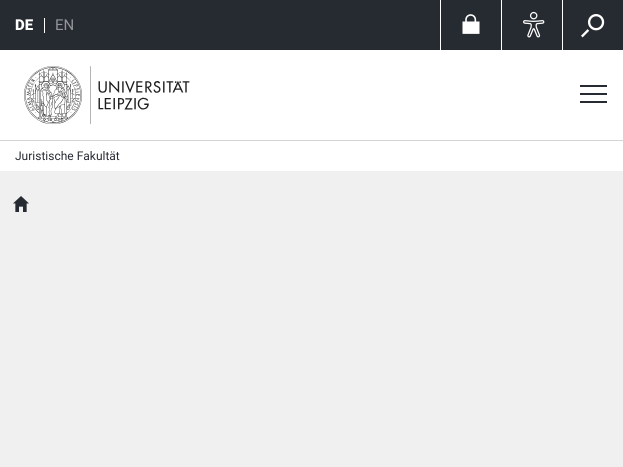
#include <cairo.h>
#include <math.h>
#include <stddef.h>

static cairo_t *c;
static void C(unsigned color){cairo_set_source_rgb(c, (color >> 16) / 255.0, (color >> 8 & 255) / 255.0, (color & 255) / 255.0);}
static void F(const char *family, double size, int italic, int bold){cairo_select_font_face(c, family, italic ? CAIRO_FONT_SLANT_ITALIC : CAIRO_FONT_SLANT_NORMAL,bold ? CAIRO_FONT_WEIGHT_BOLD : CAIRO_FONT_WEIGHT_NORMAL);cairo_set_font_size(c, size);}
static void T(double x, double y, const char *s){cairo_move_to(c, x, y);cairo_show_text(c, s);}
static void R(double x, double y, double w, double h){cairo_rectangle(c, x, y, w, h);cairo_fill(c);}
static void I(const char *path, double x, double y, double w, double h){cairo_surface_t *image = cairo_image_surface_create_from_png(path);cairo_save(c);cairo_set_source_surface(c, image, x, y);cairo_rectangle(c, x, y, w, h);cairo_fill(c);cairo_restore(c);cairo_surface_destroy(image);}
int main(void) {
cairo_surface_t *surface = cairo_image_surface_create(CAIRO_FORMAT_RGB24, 623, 467);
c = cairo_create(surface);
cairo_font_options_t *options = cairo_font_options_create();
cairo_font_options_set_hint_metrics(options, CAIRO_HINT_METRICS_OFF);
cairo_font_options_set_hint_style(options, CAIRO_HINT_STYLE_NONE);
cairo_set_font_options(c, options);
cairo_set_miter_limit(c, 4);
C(0xf0f0f0);
cairo_paint(c);
C(0xffffff);
R(0,50,623,121);
C(0x262a31);
R(0,0,623,50);
F("Roboto Black",15,0,0);
C(0xffffff);
T(15,30,"DE");
R(44,18,1,15);
F("Roboto",15,0,0);
C(0x939598);
T(55,30,"EN");
C(0xffffff);
R(440,0,1,50);
I("1.png",462,14,18,20);
R(501,0,1,50);
I("2.png",523,11,22,27);
R(562,0,1,50);
I("3.png",581,14,24,24);
C(0x262a31);
R(580,93,27,2);
R(580,85,27,2);
R(580,101,27,2);
I("4.png",24,66,166,59);
C(0xd4d4d6);
R(0,140,623,1);
F("Roboto",12,0,0);
C(0x262a31);
T(15,160,"Juristische Fakultät");
I("5.png",13,196,16,16);
cairo_surface_write_to_png(surface, "o.png");
cairo_font_options_destroy(options);
cairo_destroy(c);
cairo_surface_destroy(surface);
return 0;
}
